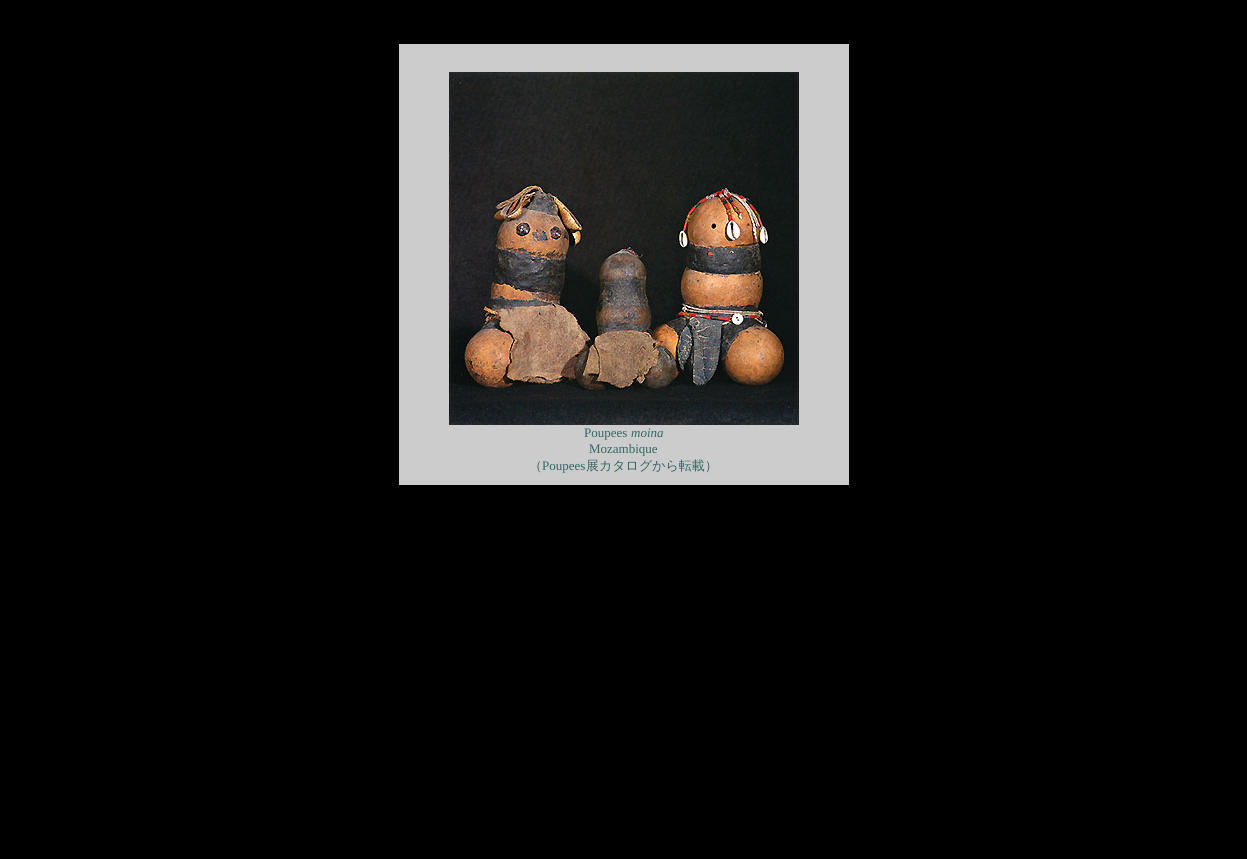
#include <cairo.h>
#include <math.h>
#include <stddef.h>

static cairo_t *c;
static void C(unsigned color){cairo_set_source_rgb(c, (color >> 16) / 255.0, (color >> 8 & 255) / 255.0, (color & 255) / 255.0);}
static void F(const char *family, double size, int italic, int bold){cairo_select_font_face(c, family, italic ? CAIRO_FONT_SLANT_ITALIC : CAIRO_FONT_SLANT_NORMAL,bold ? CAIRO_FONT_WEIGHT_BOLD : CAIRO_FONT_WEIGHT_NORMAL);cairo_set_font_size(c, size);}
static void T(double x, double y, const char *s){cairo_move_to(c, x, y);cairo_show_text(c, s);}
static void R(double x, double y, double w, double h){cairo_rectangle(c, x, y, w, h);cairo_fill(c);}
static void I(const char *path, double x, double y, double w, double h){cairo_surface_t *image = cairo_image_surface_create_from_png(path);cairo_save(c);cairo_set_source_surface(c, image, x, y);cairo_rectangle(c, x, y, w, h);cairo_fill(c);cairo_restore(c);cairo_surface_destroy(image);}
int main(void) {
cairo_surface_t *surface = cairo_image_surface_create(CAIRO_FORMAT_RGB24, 1247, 859);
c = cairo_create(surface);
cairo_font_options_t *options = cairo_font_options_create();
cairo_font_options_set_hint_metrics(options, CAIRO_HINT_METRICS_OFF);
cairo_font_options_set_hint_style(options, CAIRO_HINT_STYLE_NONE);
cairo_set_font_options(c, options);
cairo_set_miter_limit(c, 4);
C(0x000000);
cairo_paint(c);
C(0xcccccc);
R(399,44,450,441);
I("1.png",449,72,350,353);
F("Liberation Serif",13,0,0);
C(0x336666);
T(584,437,"Poupees");
F("Liberation Serif",13,1,0);
T(631,437,"moina");
F("Liberation Serif",13,0,0);
T(589,453,"Mozambique");
F("WenQuanYi Zen Hei Medium",13,0,0);
T(529,470,"（");
F("Liberation Serif",13,0,0);
T(542,470,"Poupees");
F("WenQuanYi Zen Hei Medium",13,0,0);
T(586,470,"展カタログから転載）");
cairo_surface_write_to_png(surface, "o.png");
cairo_font_options_destroy(options);
cairo_destroy(c);
cairo_surface_destroy(surface);
return 0;
}
